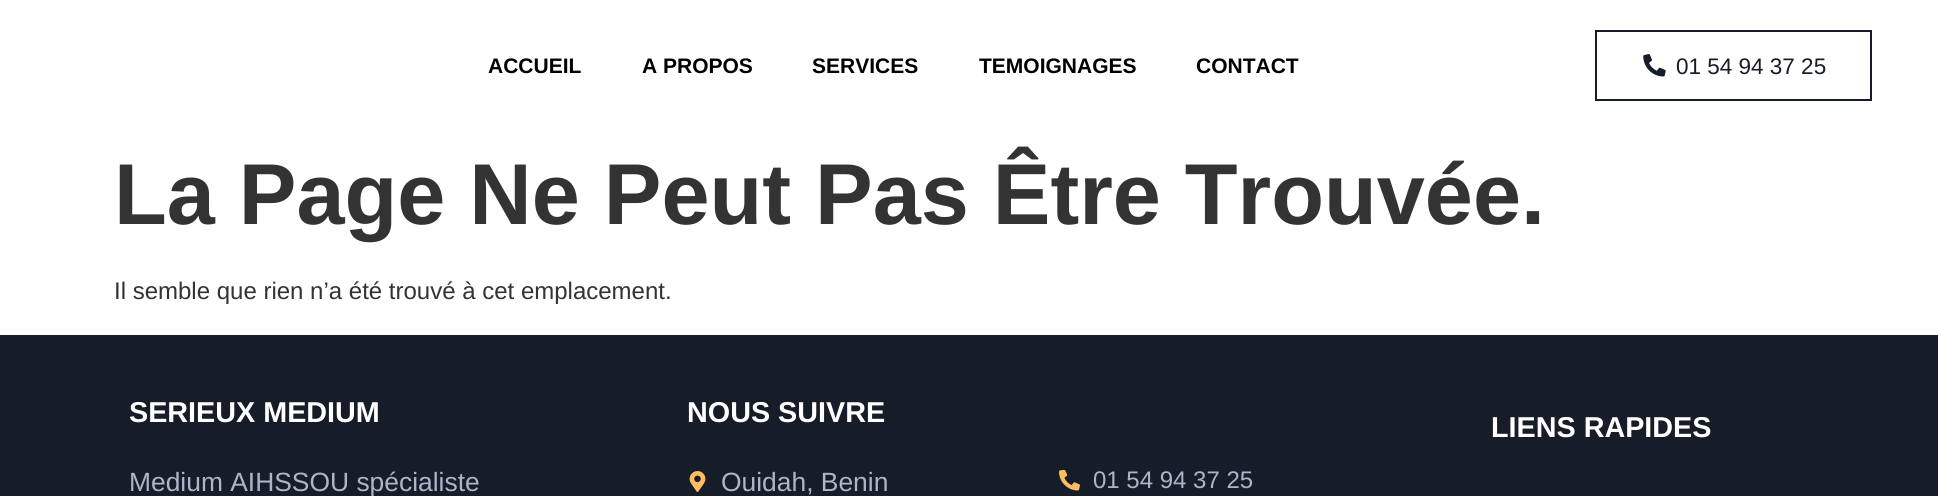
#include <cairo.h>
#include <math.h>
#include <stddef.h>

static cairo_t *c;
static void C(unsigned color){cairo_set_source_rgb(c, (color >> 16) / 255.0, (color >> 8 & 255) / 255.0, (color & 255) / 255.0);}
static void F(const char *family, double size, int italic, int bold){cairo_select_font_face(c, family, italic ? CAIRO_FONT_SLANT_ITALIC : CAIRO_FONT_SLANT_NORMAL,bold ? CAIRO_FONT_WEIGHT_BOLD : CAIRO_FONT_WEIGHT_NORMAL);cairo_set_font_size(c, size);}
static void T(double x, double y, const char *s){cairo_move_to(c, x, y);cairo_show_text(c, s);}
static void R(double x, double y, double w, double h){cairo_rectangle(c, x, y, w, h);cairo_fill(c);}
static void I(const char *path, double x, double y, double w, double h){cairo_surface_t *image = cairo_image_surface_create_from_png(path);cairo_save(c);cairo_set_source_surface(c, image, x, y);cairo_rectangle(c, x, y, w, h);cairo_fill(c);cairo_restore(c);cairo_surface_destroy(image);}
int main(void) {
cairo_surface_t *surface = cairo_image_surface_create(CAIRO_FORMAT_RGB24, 1938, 496);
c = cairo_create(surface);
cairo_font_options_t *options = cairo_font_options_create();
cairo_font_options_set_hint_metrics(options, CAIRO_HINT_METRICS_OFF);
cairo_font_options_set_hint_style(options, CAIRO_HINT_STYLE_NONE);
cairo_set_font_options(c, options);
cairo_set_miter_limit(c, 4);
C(0xffffff);
cairo_paint(c);
F("Liberation Sans",21,0,1);
C(0x000000);
T(488,73,"ACCUEIL");
T(642,73,"A PROPOS");
T(812,73,"SERVICES");
T(979,73,"TEMOIGNAGES");
T(1196,73,"CONTACT");
cairo_rectangle(c,1596,31,275,69);
C(0x161c28);
cairo_stroke(c);
I("1.png",1643,54,23,23);
F("Liberation Sans",22.5,0,0);
T(1676,74,"01 54 94 37 25");
F("Liberation Sans",86.4,0,1);
C(0x333333);
T(114,224,"La Page Ne Peut Pas Être Trouvée.");
F("Liberation Sans",24,0,0);
T(114,299,"Il semble que rien n’a été trouvé à cet emplacement.");
C(0x161c28);
R(0,335,1938,161);
F("Liberation Sans",28.75,0,1);
C(0xffffff);
T(129,422,"SERIEUX MEDIUM");
F("Liberation Sans",26.4,0,0);
C(0xadb5c6);
T(129,491,"Medium AIHSSOU spécialiste");
F("Liberation Sans",28.75,0,1);
C(0xffffff);
T(687,422,"NOUS SUIVRE");
I("2.png",689,471,17,21);
F("Liberation Sans",26.4,0,0);
C(0xadb5c6);
T(721,491,"Ouidah, Benin");
I("3.png",1059,470,21,21);
F("Liberation Sans",24,0,0);
T(1093,488,"01 54 94 37 25");
F("Liberation Sans",28.75,0,1);
C(0xffffff);
T(1491,437,"LIENS RAPIDES");
cairo_surface_write_to_png(surface, "o.png");
cairo_font_options_destroy(options);
cairo_destroy(c);
cairo_surface_destroy(surface);
return 0;
}
